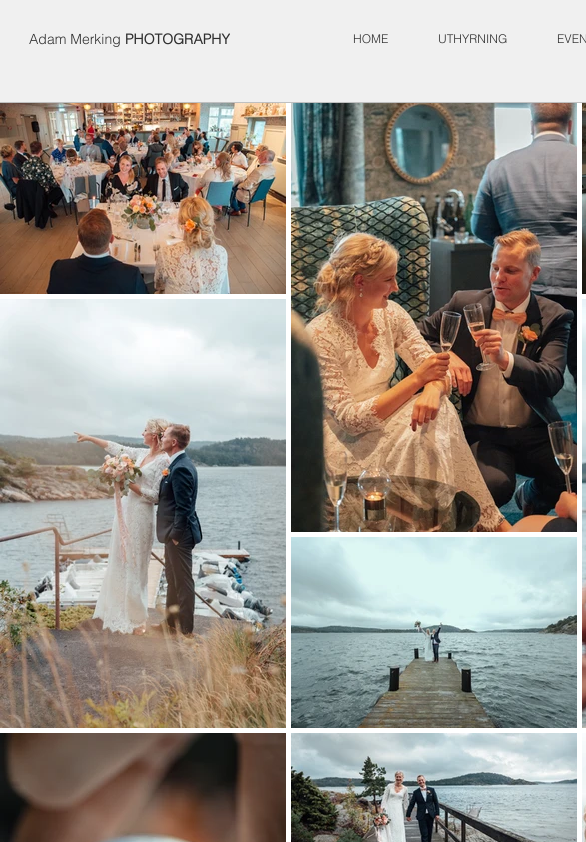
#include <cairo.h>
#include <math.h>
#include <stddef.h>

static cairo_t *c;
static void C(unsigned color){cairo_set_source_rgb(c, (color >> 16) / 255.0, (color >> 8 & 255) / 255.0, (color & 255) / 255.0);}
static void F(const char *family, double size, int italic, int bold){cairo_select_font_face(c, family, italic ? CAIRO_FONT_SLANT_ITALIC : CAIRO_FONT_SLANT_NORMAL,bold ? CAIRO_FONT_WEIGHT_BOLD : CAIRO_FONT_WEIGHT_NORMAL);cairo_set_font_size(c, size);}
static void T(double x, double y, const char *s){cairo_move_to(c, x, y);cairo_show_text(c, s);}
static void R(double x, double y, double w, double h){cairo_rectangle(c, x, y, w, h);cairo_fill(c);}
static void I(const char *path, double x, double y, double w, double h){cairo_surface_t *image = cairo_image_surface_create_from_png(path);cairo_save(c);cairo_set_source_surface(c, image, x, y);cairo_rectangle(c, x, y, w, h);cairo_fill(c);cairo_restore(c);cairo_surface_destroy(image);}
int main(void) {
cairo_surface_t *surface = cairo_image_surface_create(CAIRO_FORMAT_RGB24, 586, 842);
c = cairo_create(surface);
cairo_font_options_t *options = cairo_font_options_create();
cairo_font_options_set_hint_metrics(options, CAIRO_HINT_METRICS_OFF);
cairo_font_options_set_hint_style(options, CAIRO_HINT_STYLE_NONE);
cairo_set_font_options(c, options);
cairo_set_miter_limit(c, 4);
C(0xf0f0f0);
cairo_paint(c);
F("helvetica Light",14,0,0);
C(0x303030);
T(29,44,"Adam Merking");
F("helvetica",14,0,1);
T(125,44,"PHOTOGRAPHY");
F("helvetica Light",12,0,0);
T(353,43,"HOME");
T(438,43,"UTHYRNING");
T(557,43,"EVEN");
C(0xc0c0c0);
R(0,102,586,1);
C(0xffffff);
R(0,103,586,739);
I("1.png",0,103,286,191);
I("2.png",291,103,286,429);
I("3.png",582,103,4,191);
I("4.png",0,299,286,429);
I("5.png",291,537,286,191);
I("6.png",582,299,4,429);
I("7.png",0,733,286,109);
I("8.png",291,733,286,109);
I("9.png",582,733,4,109);
cairo_surface_write_to_png(surface, "o.png");
cairo_font_options_destroy(options);
cairo_destroy(c);
cairo_surface_destroy(surface);
return 0;
}
